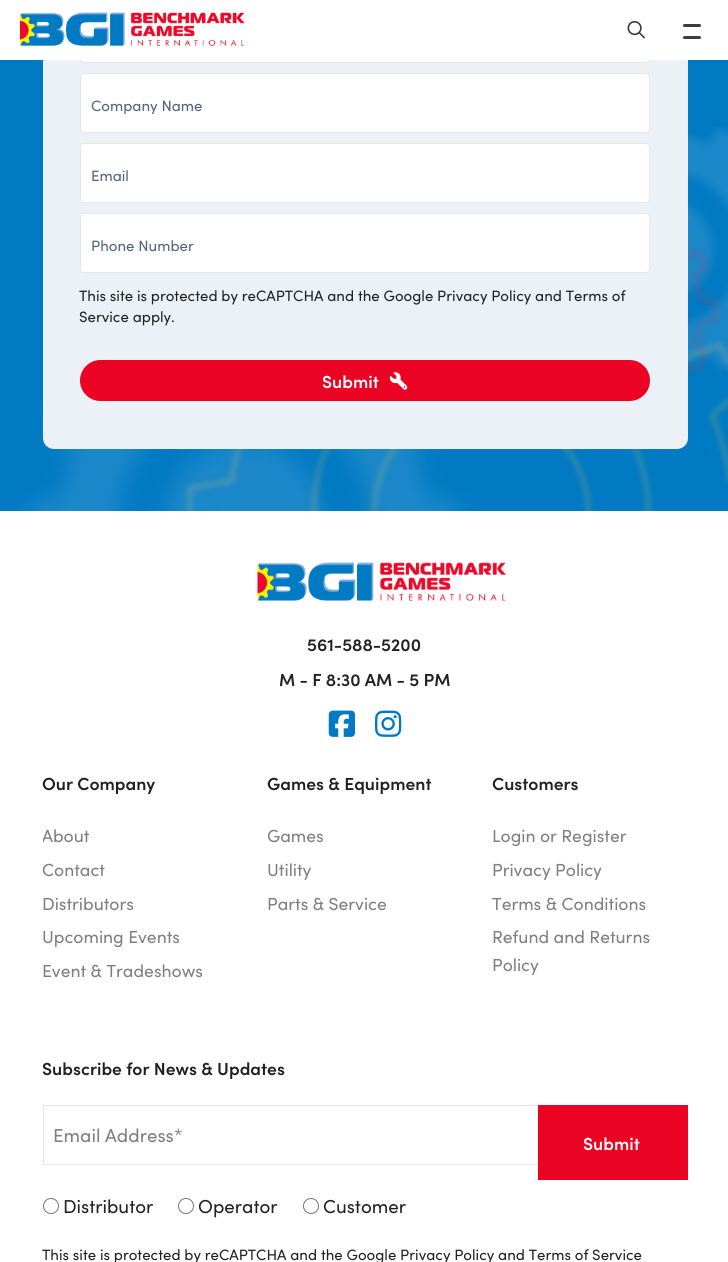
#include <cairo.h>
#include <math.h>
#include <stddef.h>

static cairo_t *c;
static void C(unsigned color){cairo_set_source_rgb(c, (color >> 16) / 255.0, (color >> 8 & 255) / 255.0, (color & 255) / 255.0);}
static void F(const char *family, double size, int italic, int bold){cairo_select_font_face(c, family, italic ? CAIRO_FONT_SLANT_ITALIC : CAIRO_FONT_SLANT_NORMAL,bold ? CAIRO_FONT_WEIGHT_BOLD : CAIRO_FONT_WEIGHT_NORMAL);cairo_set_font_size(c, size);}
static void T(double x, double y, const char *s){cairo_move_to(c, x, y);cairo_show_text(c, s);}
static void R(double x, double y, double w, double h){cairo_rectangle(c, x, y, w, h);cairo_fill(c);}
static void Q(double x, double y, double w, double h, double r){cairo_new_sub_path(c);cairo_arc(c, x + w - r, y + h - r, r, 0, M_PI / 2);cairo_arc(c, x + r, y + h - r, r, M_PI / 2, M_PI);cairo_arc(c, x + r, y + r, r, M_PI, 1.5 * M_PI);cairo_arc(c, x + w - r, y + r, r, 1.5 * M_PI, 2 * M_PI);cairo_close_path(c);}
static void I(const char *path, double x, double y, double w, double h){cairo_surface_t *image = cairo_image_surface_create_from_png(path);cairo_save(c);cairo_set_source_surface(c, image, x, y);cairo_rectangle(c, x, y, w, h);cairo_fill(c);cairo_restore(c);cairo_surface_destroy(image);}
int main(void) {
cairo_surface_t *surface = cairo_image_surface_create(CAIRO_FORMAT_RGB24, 728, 1262);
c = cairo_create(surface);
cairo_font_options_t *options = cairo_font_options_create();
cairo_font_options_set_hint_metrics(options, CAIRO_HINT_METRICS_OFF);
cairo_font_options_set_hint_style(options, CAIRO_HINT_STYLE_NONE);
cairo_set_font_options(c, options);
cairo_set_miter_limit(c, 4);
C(0xffffff);
cairo_paint(c);
C(0x007ac3);
R(0,60,728,451);
I("3.png",23,127,705,385);
C(0xecf1f8);
Q(43,-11,645,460,11);
cairo_fill(c);
C(0xffffff);
Q(80,3,570,60,4);
cairo_fill(c);
Q(80.5,3.5,569,59,3.5);
cairo_set_source_rgba(c,0,0,0,0.1);
cairo_set_line_width(c,1);
cairo_stroke(c);
C(0xffffff);
R(43,0,645,60);
I("1.png",20,12,225,35);
I("2.png",627,20,18,19);
C(0x3f3b3b);
Q(683,24,18,3,1.5);
cairo_fill(c);
Q(683,36,18,3,1.5);
cairo_fill(c);
C(0xffffff);
Q(80,73,570,60,4);
cairo_fill(c);
Q(80.5,73.5,569,59,3.5);
cairo_set_source_rgba(c,0,0,0,0.1);
cairo_stroke(c);
cairo_save(c);
cairo_rectangle(c,91,93,548,21);
cairo_clip(c);
F("Sofia",15,0,0);
C(0x52647c);
T(91,111,"Company Name");
cairo_restore(c);
C(0xffffff);
Q(80,143,570,60,4);
cairo_fill(c);
Q(80.5,143.5,569,59,3.5);
cairo_set_source_rgba(c,0,0,0,0.1);
cairo_stroke(c);
F("Sofia",15,0,0);
C(0x52647c);
T(91,181,"Email");
C(0xffffff);
Q(80,213,570,60,4);
cairo_fill(c);
Q(80.5,213.5,569,59,3.5);
cairo_set_source_rgba(c,0,0,0,0.1);
cairo_stroke(c);
C(0x52647c);
T(91,251,"Phone Number");
C(0x212121);
T(79,301,"This site is protected by reCAPTCHA and the Google Privacy Policy and Terms of");
T(79,322,"Service apply.");
C(0xea0323);
Q(80,360,570,41,20.5);
cairo_fill(c);
F("Sofia SemiBold",17.5,0,0);
C(0xffffff);
T(322,388,"Submit");
I("4.png",389,372,19,18);
I("5.png",257,562,250,40);
C(0x212121);
T(307,651,"561-588-5200");
T(279,686,"M - F 8:30 AM - 5 PM");
I("6.png",328,710,27,27);
I("7.png",375,710,27,27);
T(42,790,"Our Company");
cairo_save(c);
cairo_rectangle(c,43,821,46,28);
cairo_clip(c);
F("Sofia",17.5,0,0);
C(0x807e7e);
T(42,842,"About");
cairo_restore(c);
cairo_save(c);
cairo_rectangle(c,43,855,62,28);
cairo_clip(c);
F("Sofia",17.5,0,0);
C(0x807e7e);
T(42,876,"Contact");
cairo_restore(c);
F("Sofia",17.5,0,0);
C(0x807e7e);
T(42,910,"Distributors");
T(42,943,"Upcoming Events");
T(42,977,"Event & Tradeshows");
F("Sofia SemiBold",17.5,0,0);
C(0x212121);
T(267,790,"Games & Equipment");
cairo_save(c);
cairo_rectangle(c,268,821,56,28);
cairo_clip(c);
F("Sofia",17.5,0,0);
C(0x807e7e);
T(267,842,"Games");
cairo_restore(c);
F("Sofia",17.5,0,0);
C(0x807e7e);
T(267,876,"Utility");
T(267,910,"Parts & Service");
F("Sofia SemiBold",17.5,0,0);
C(0x212121);
T(492,790,"Customers");
F("Sofia",17.5,0,0);
C(0x807e7e);
T(492,842,"Login or Register");
T(492,876,"Privacy Policy");
T(492,910,"Terms & Conditions");
T(492,943,"Refund and Returns");
T(492,971,"Policy");
F("Sofia SemiBold",17.5,0,0);
C(0x212121);
T(42,1075,"Subscribe for News & Updates");
cairo_rectangle(c,43.5,1105.5,644,59);
C(0xe6e6e6);
cairo_stroke(c);
F("Sofia",18.75,0,0);
C(0x807e7e);
T(53,1142,"Email Address*");
cairo_new_path(c);
cairo_arc(c,51,1206,7.5,0,2 * M_PI);
C(0x767676);
cairo_stroke(c);
C(0x212121);
T(63,1213,"Distributor");
cairo_new_path(c);
cairo_arc(c,186,1206,7.5,0,2 * M_PI);
C(0x767676);
cairo_stroke(c);
C(0x212121);
T(198,1213,"Operator");
cairo_new_path(c);
cairo_arc(c,311,1206,7.5,0,2 * M_PI);
C(0x767676);
cairo_stroke(c);
C(0x212121);
T(323,1213,"Customer");
F("Sofia",15,0,0);
T(42,1260,"This site is protected by reCAPTCHA and the Google Privacy Policy and Terms of Service");
C(0xea0323);
R(538,1105,150,75);
F("Sofia SemiBold",17.5,0,0);
C(0xffffff);
T(583,1150,"Submit");
cairo_surface_write_to_png(surface, "o.png");
cairo_font_options_destroy(options);
cairo_destroy(c);
cairo_surface_destroy(surface);
return 0;
}
